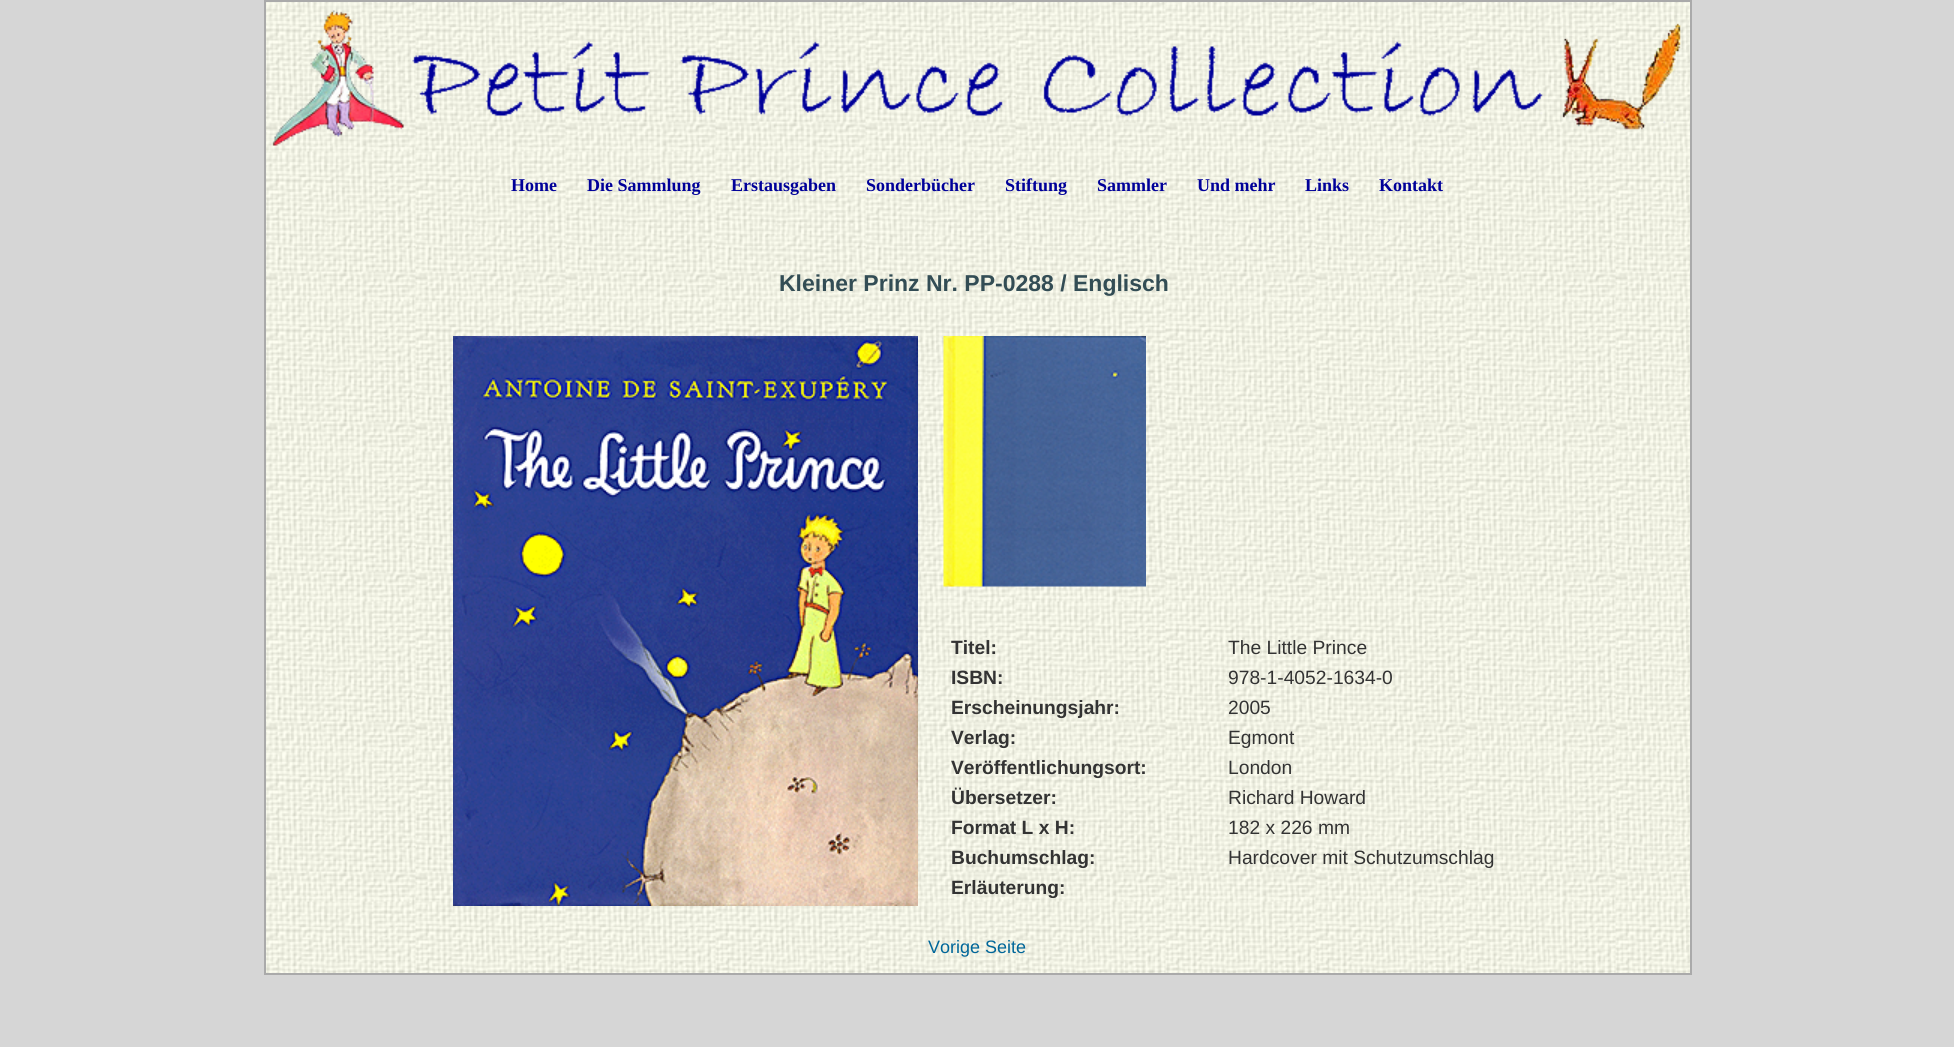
#include <cairo.h>
#include <math.h>
#include <stddef.h>

static cairo_t *c;
static void C(unsigned color){cairo_set_source_rgb(c, (color >> 16) / 255.0, (color >> 8 & 255) / 255.0, (color & 255) / 255.0);}
static void F(const char *family, double size, int italic, int bold){cairo_select_font_face(c, family, italic ? CAIRO_FONT_SLANT_ITALIC : CAIRO_FONT_SLANT_NORMAL,bold ? CAIRO_FONT_WEIGHT_BOLD : CAIRO_FONT_WEIGHT_NORMAL);cairo_set_font_size(c, size);}
static void T(double x, double y, const char *s){cairo_move_to(c, x, y);cairo_show_text(c, s);}
static void I(const char *path, double x, double y, double w, double h){cairo_surface_t *image = cairo_image_surface_create_from_png(path);cairo_save(c);cairo_set_source_surface(c, image, x, y);cairo_rectangle(c, x, y, w, h);cairo_fill(c);cairo_restore(c);cairo_surface_destroy(image);}
int main(void) {
cairo_surface_t *surface = cairo_image_surface_create(CAIRO_FORMAT_RGB24, 1954, 1047);
c = cairo_create(surface);
cairo_font_options_t *options = cairo_font_options_create();
cairo_font_options_set_hint_metrics(options, CAIRO_HINT_METRICS_OFF);
cairo_font_options_set_hint_style(options, CAIRO_HINT_STYLE_NONE);
cairo_set_font_options(c, options);
cairo_set_miter_limit(c, 4);
C(0xd6d6d6);
cairo_paint(c);
I("1.png",266,2,1424,971);
cairo_rectangle(c,265,1,1426,973);
C(0xaaaaaa);
cairo_stroke(c);
I("2.png",272,10,1409,136);
F("Liberation Serif",18,0,1);
C(0x000099);
T(511,191,"Home");
T(587,191,"Die Sammlung");
T(731,191,"Erstausgaben");
T(866,191,"Sonderbücher");
T(1005,191,"Stiftung");
T(1097,191,"Sammler");
T(1197,191,"Und mehr");
T(1305,191,"Links");
T(1379,191,"Kontakt");
F("Liberation Sans",23,0,1);
C(0x334d55);
T(779,291,"Kleiner Prinz Nr. PP-0288 / Englisch");
I("3.png",453,336,465,570);
I("4.png",943,336,203,251);
F("Liberation Sans",19.25,0,1);
C(0x333333);
T(951,654,"Titel:");
F("Liberation Sans",19.25,0,0);
T(1228,654,"The Little Prince");
F("Liberation Sans",19.25,0,1);
T(951,684,"ISBN:");
F("Liberation Sans",19.25,0,0);
T(1228,684,"978-1-4052-1634-0");
F("Liberation Sans",19.25,0,1);
T(951,714,"Erscheinungsjahr:");
F("Liberation Sans",19.25,0,0);
T(1228,714,"2005");
F("Liberation Sans",19.25,0,1);
T(951,744,"Verlag:");
F("Liberation Sans",19.25,0,0);
T(1228,744,"Egmont");
F("Liberation Sans",19.25,0,1);
T(951,774,"Veröffentlichungsort:");
F("Liberation Sans",19.25,0,0);
T(1228,774,"London");
F("Liberation Sans",19.25,0,1);
T(951,804,"Übersetzer:");
F("Liberation Sans",19.25,0,0);
T(1228,804,"Richard Howard");
F("Liberation Sans",19.25,0,1);
T(951,834,"Format L x H:");
F("Liberation Sans",19.25,0,0);
T(1228,834,"182 x 226 mm");
F("Liberation Sans",19.25,0,1);
T(951,864,"Buchumschlag:");
F("Liberation Sans",19.25,0,0);
T(1228,864,"Hardcover mit Schutzumschlag");
F("Liberation Sans",19.25,0,1);
T(951,894,"Erläuterung:");
F("Liberation Sans",18,0,0);
C(0x006699);
T(928,953,"Vorige Seite");
cairo_surface_write_to_png(surface, "o.png");
cairo_font_options_destroy(options);
cairo_destroy(c);
cairo_surface_destroy(surface);
return 0;
}
